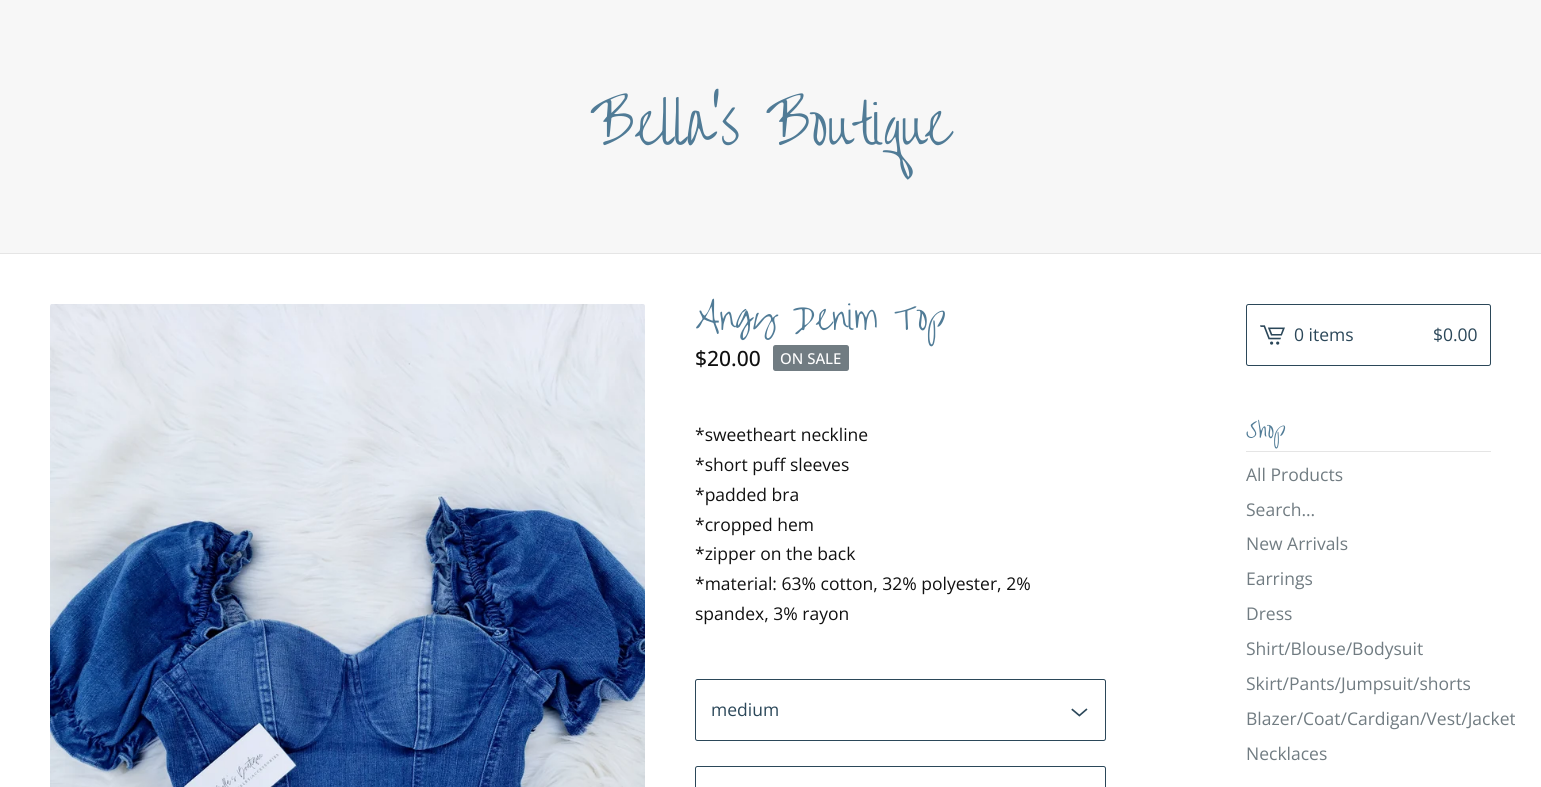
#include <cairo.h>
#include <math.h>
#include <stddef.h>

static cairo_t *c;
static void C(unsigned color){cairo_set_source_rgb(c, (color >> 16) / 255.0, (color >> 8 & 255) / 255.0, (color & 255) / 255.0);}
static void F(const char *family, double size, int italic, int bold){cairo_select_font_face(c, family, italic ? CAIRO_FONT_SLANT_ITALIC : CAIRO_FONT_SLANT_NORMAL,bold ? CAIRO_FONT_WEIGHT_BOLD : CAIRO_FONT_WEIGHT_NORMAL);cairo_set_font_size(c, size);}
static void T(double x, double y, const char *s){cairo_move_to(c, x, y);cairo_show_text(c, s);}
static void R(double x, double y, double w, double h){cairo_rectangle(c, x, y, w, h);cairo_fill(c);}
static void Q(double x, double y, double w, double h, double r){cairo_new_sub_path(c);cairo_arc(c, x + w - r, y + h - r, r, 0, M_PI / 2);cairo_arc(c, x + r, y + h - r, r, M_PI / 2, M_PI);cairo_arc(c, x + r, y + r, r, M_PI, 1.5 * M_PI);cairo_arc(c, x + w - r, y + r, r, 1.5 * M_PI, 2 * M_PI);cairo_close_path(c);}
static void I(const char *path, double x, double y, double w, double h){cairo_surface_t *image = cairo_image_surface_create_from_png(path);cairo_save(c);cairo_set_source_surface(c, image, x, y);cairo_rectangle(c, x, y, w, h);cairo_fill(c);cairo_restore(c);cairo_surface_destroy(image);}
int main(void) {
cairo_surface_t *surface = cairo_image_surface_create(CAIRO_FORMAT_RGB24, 1541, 787);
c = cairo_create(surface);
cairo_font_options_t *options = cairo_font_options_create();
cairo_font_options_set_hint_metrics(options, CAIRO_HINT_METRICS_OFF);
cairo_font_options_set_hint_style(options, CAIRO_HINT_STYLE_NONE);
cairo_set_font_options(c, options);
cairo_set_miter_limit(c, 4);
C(0xffffff);
cairo_paint(c);
C(0xf7f7f7);
R(0,0,1541,253);
C(0xe5e5e5);
R(0,253,1541,1);
F("Over the Rainbow",52.5,0,0);
C(0x507b96);
T(590,145,"Bella's Boutique");
I("1.png",50,304,595,483);
F("Over the Rainbow",32.5,0,0);
T(695,330,"Angy Denim Top");
F("Open Sans Medium",21,0,0);
C(0x111111);
T(695,366,"$20.00");
C(0x717c82);
Q(773,345,76,26,2.5);
cairo_fill(c);
F("Open Sans Medium",15,0,0);
C(0xffffff);
T(780,364,"ON SALE");
F("Open Sans",17.5,0,0);
C(0x111111);
T(695,441,"*sweetheart neckline");
T(695,471,"*short puff sleeves");
T(695,501,"*padded bra");
T(695,531,"*cropped hem");
T(695,560,"*zipper on the back");
T(695,590,"*material: 63% cotton, 32% polyester, 2%");
T(695,620,"spandex, 3% rayon");
Q(695.5,679.5,410,61,2);
C(0x2b4759);
cairo_set_line_width(c,1);
cairo_stroke(c);
T(711,716,"medium");
I("2.png",1071,708,17,9);
Q(695.5,766.5,410,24,2);
cairo_stroke(c);
Q(1246.5,304.5,244,61,2);
cairo_stroke(c);
I("3.png",1260,325,25,20);
T(1294,341,"0 items");
T(1433,341,"$0.00");
C(0xe5e5e5);
R(1246,451,245,1);
F("Over the Rainbow",21,0,0);
C(0x507b96);
T(1246,438,"Shop");
F("Open Sans",17.5,0,0);
C(0x717c82);
T(1246,481,"All Products");
T(1246,516,"Search...");
T(1246,550,"New Arrivals");
T(1246,585,"Earrings");
T(1246,620,"Dress");
T(1246,655,"Shirt/Blouse/Bodysuit");
T(1246,690,"Skirt/Pants/Jumpsuit/shorts");
T(1246,725,"Blazer/Coat/Cardigan/Vest/Jacket");
T(1246,760,"Necklaces");
cairo_surface_write_to_png(surface, "o.png");
cairo_font_options_destroy(options);
cairo_destroy(c);
cairo_surface_destroy(surface);
return 0;
}
